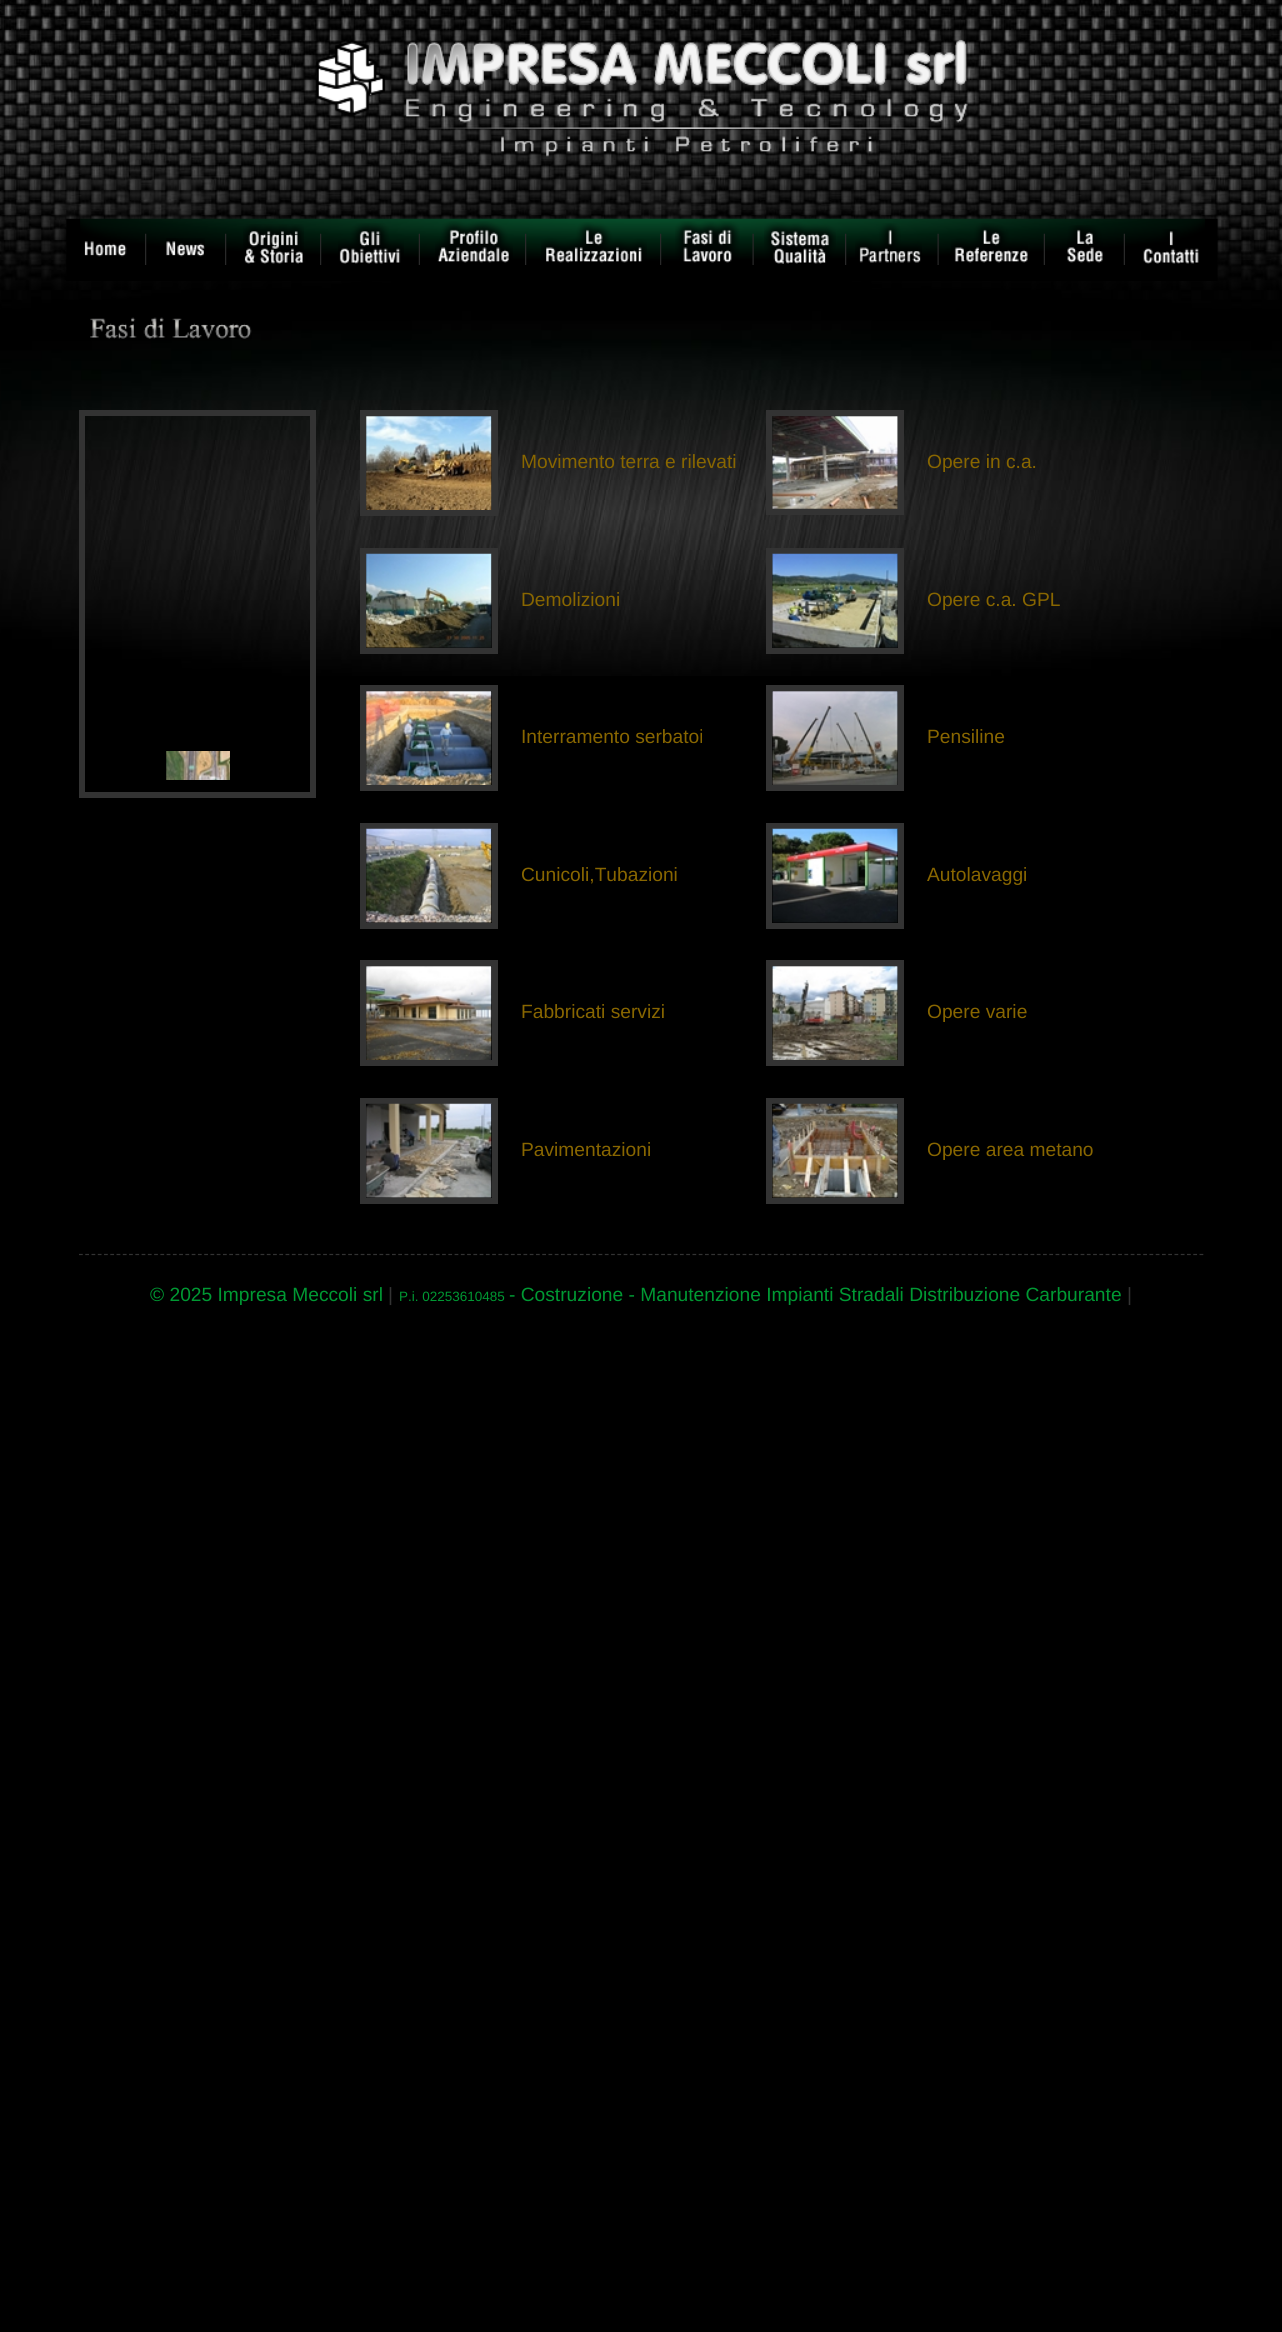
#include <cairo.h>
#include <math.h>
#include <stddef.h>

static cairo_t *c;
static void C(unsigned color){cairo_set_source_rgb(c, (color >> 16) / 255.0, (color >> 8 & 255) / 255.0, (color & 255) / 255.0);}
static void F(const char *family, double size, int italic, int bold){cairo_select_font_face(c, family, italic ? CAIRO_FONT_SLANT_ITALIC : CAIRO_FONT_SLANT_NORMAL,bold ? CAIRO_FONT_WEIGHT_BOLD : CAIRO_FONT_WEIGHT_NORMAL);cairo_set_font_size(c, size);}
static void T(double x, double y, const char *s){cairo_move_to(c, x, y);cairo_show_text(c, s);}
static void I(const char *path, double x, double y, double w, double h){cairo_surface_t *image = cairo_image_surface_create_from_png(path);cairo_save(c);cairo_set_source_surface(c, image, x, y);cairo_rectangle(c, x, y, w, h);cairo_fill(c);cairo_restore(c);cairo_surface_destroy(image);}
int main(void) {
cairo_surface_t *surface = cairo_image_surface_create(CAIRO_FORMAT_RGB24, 1282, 2332);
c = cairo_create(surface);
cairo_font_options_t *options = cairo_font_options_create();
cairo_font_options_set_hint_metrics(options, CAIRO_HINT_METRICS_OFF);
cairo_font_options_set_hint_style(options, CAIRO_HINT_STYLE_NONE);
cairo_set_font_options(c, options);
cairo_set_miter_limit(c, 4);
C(0x000000);
cairo_paint(c);
I("1.png",0,0,1282,676);
I("2.png",316,39,652,118);
I("3.png",66,218,1152,63);
I("4.png",84,241,43,16);
I("5.png",145,233,2,32);
I("6.png",166,238,39,19);
I("7.png",225,233,2,32);
I("8.png",243,224,61,40);
I("9.png",320,233,2,32);
I("10.png",338,223,66,41);
I("11.png",418,233,2,32);
I("12.png",435,221,78,42);
I("13.png",525,233,2,32);
I("14.png",541,222,106,41);
I("15.png",660,233,2,32);
I("16.png",675,221,65,42);
I("17.png",752,233,2,32);
I("18.png",764,222,72,42);
I("19.png",845,233,2,32);
I("20.png",855,223,67,40);
I("21.png",937,233,2,32);
I("22.png",951,223,77,40);
I("23.png",1043,233,2,32);
I("24.png",1067,225,36,38);
I("25.png",1123,233,2,32);
I("26.png",1143,229,56,35);
I("27.png",90,317,162,22);
cairo_rectangle(c,82,413,231,382);
C(0x333333);
cairo_set_line_width(c,6);
cairo_stroke(c);
I("28.png",166,751,64,29);
cairo_rectangle(c,363,413,132,100);
cairo_stroke(c);
I("29.png",366,416,126,94);
F("Liberation Sans",19.2,0,0);
C(0x886600);
T(521,468,"Movimento terra e rilevati");
cairo_rectangle(c,769,413,132,99);
C(0x333333);
cairo_stroke(c);
I("30.png",772,416,126,93);
C(0x886600);
T(927,468,"Opere in c.a.");
cairo_rectangle(c,363,551,132,100);
C(0x333333);
cairo_stroke(c);
I("31.png",366,553,126,95);
C(0x886600);
T(521,606,"Demolizioni");
cairo_rectangle(c,769,551,132,100);
C(0x333333);
cairo_stroke(c);
I("32.png",772,553,126,95);
C(0x886600);
T(927,606,"Opere c.a. GPL");
cairo_rectangle(c,363,688,132,100);
C(0x333333);
cairo_stroke(c);
I("33.png",366,691,126,94);
C(0x886600);
T(521,743,"Interramento serbatoi");
cairo_rectangle(c,769,688,132,100);
C(0x333333);
cairo_stroke(c);
I("34.png",772,691,126,94);
C(0x886600);
T(927,743,"Pensiline");
cairo_rectangle(c,363,826,132,100);
C(0x333333);
cairo_stroke(c);
I("35.png",366,828,126,95);
C(0x886600);
T(521,881,"Cunicoli,Tubazioni");
cairo_rectangle(c,769,826,132,100);
C(0x333333);
cairo_stroke(c);
I("36.png",772,828,126,95);
C(0x886600);
T(927,881,"Autolavaggi");
cairo_rectangle(c,363,963,132,100);
C(0x333333);
cairo_stroke(c);
I("37.png",366,966,126,94);
C(0x886600);
T(521,1018,"Fabbricati servizi");
cairo_rectangle(c,769,963,132,100);
C(0x333333);
cairo_stroke(c);
I("38.png",772,966,126,94);
C(0x886600);
T(927,1018,"Opere varie");
cairo_rectangle(c,363,1101,132,100);
C(0x333333);
cairo_stroke(c);
I("39.png",366,1103,126,95);
C(0x886600);
T(521,1156,"Pavimentazioni");
cairo_rectangle(c,769,1101,132,100);
C(0x333333);
cairo_stroke(c);
I("40.png",772,1103,126,95);
C(0x886600);
T(927,1156,"Opere area metano");
cairo_new_path(c);
cairo_move_to(c,79,1254.5);
cairo_line_to(c,1204,1254.5);
C(0x333333);
cairo_set_line_width(c,1.2);
cairo_set_dash(c,(double[]){3.75,2.51},2,0);
cairo_stroke(c);
C(0x009933);
T(150,1301,"© 2025 Impresa Meccoli srl");
C(0x333333);
T(388,1301,"|");
F("Liberation Sans",13.5,0,0);
C(0x009933);
T(399,1301,"P.i. 02253610485");
F("Liberation Sans",19.2,0,0);
T(509,1301,"- Costruzione - Manutenzione Impianti Stradali Distribuzione Carburante");
C(0x333333);
T(1127,1301,"|");
cairo_surface_write_to_png(surface, "o.png");
cairo_font_options_destroy(options);
cairo_destroy(c);
cairo_surface_destroy(surface);
return 0;
}
